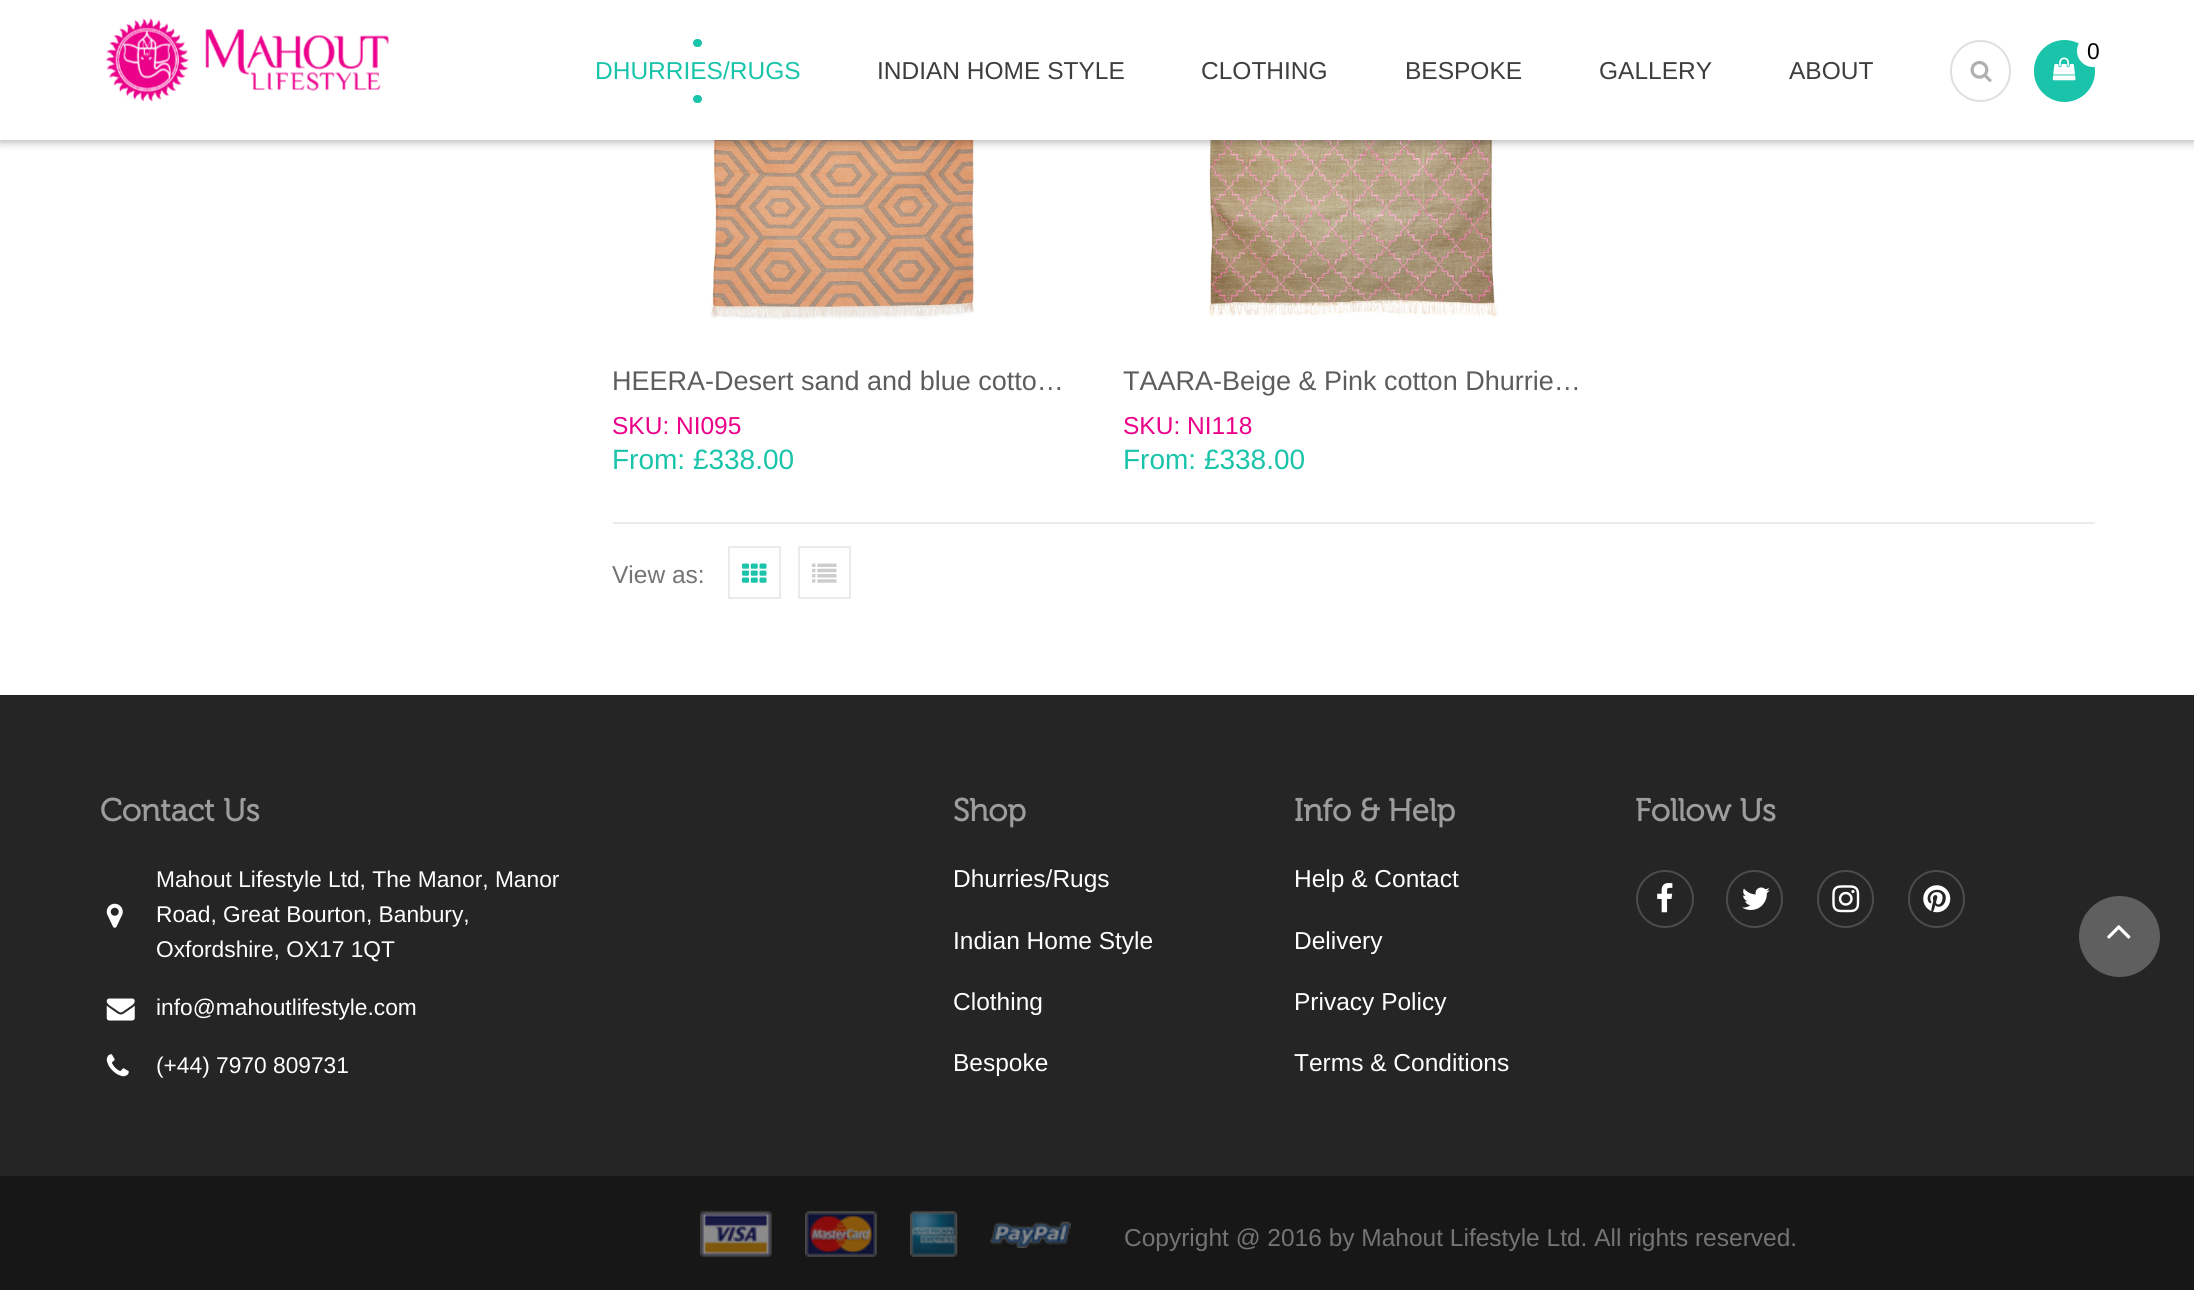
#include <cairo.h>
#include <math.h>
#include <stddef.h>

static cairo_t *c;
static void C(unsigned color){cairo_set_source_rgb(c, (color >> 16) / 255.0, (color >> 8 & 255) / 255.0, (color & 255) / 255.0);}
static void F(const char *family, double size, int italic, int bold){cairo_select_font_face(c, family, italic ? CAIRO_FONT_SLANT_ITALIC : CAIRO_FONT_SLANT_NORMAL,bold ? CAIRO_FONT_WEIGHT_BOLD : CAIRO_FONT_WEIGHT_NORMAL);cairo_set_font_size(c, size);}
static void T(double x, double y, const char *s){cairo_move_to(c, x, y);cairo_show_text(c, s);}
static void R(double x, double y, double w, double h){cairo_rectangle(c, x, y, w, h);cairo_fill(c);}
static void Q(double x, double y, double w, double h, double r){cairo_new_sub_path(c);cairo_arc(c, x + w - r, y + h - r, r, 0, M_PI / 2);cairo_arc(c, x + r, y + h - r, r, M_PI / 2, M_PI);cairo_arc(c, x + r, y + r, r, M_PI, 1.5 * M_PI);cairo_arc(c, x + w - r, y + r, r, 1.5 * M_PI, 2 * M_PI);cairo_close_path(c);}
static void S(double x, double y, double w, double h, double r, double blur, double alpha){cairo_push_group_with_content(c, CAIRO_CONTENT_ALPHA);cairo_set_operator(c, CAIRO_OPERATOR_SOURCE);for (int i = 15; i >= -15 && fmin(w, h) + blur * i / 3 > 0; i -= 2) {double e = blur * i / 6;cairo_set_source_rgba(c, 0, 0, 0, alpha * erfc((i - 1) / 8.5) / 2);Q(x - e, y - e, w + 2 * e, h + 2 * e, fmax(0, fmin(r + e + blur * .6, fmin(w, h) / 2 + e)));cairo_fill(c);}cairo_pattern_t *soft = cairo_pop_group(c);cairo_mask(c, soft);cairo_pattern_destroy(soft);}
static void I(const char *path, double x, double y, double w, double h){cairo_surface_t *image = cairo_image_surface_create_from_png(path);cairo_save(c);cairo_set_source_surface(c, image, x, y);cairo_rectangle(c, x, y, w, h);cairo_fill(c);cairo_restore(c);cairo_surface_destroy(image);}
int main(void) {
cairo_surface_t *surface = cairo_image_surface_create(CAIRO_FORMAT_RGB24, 2194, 1290);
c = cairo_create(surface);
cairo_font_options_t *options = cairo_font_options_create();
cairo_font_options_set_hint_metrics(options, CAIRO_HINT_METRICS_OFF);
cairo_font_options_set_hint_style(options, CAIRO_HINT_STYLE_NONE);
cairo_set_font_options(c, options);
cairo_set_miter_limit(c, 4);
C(0xffffff);
cairo_paint(c);
I("4.png",710,140,266,180);
I("5.png",1209,140,289,177);
C(0x000000);
S(0,2,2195,140,0,4.5,.3);
C(0xffffff);
R(0,0,2194,140);
I("1.png",105,18,284,84);
Q(1951,41,59,60,29.5);
C(0xdfdfdf);
cairo_stroke(c);
I("2.png",1970,60,22,22);
C(0x19c4aa);
Q(2034,40,61,62,30.5);
cairo_fill(c);
C(0xffffff);
cairo_arc(c,2093,51,16,0,2 * M_PI);
cairo_fill(c);
F("Liberation Sans",22.75,0,0);
C(0x000000);
T(2087,59,"0");
I("3.png",2052,57,24,24);
C(0x19c4aa);
Q(693,39,9,8,4);
cairo_fill(c);
F("Liberation Sans",24.5,0,0);
T(595,79,"DHURRIES/RUGS");
Q(693,95,9,8,4);
cairo_fill(c);
C(0x3f3e3e);
T(877,79,"INDIAN HOME STYLE");
T(1201,79,"CLOTHING");
T(1405,79,"BESPOKE");
T(1599,79,"GALLERY");
T(1789,79,"ABOUT");
F("Liberation Sans",27,0,0);
C(0x5d5d5d);
T(612,390,"HEERA-Desert sand and blue cotto…");
F("Liberation Sans",24.5,0,0);
C(0xeb008a);
T(612,434,"SKU: NI095");
F("Liberation Sans",28,0,0);
C(0x19c4aa);
T(612,469,"From: £338.00");
F("Liberation Sans",27,0,0);
C(0x5d5d5d);
T(1123,390,"TAARA-Beige & Pink cotton Dhurrie…");
F("Liberation Sans",24.5,0,0);
C(0xeb008a);
T(1123,434,"SKU: NI118");
F("Liberation Sans",28,0,0);
C(0x19c4aa);
T(1123,469,"From: £338.00");
C(0xebebeb);
R(613,522,1482,2);
F("Liberation Sans",24.5,0,0);
C(0x747474);
T(612,583,"View as:");
cairo_rectangle(c,729,547,51,51);
C(0xebebeb);
cairo_stroke(c);
I("6.png",742,563,25,20);
cairo_rectangle(c,799,547,51,51);
cairo_stroke(c);
I("7.png",812,563,25,20);
C(0x252525);
R(0,695,2194,481);
F("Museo",31.5,0,1);
C(0x9d9d9d);
T(100,821,"Contact Us");
F("Liberation Sans",22.75,0,0);
C(0xffffff);
T(156,887,"Mahout Lifestyle Ltd, The Manor, Manor");
I("8.png",106,903,17,25);
T(156,922,"Road, Great Bourton, Banbury,");
T(156,957,"Oxfordshire, OX17 1QT");
I("9.png",106,998,29,23);
T(156,1015,"info@mahoutlifestyle.com");
I("10.png",106,1054,23,23);
T(156,1073,"(+44) 7970 809731");
F("Museo",31.5,0,1);
C(0x9d9d9d);
T(953,821,"Shop");
F("Liberation Sans",24.5,0,0);
C(0xffffff);
T(953,887,"Dhurries/Rugs");
T(953,949,"Indian Home Style");
T(953,1010,"Clothing");
T(953,1071,"Bespoke");
F("Museo",31.5,0,1);
C(0x9d9d9d);
T(1294,821,"Info & Help");
F("Liberation Sans",24.5,0,0);
C(0xffffff);
T(1294,887,"Help & Contact");
T(1294,949,"Delivery");
T(1294,1010,"Privacy Policy");
T(1294,1071,"Terms & Conditions");
F("Museo",31.5,0,1);
C(0x9d9d9d);
T(1635,821,"Follow Us");
cairo_new_path(c);
cairo_arc(c,1665,899,28,0,2 * M_PI);
C(0x4c4c4c);
cairo_stroke(c);
I("11.png",1657,883,16,30);
Q(1727,871,55,56,27.5);
cairo_stroke(c);
I("12.png",1742,887,28,23);
Q(1818,871,55,56,27.5);
cairo_stroke(c);
I("13.png",1832,885,28,28);
Q(1909,871,55,56,27.5);
cairo_stroke(c);
I("14.png",1923,885,28,28);
C(0x171717);
R(0,1176,2194,114);
I("15.png",700,1211,72,46);
I("16.png",805,1211,72,46);
I("17.png",910,1211,48,46);
I("18.png",990,1221,81,27);
F("Liberation Sans",24.5,0,0);
C(0x747474);
T(1124,1246,"Copyright @ 2016 by Mahout Lifestyle Ltd. All rights reserved.");
C(0x5f5f5f);
cairo_new_path(c);
cairo_arc(c,2119.5,936.5,40.5,0,2 * M_PI);
cairo_fill(c);
I("19.png",2107,925,24,14);
cairo_surface_write_to_png(surface, "o.png");
cairo_font_options_destroy(options);
cairo_destroy(c);
cairo_surface_destroy(surface);
return 0;
}
